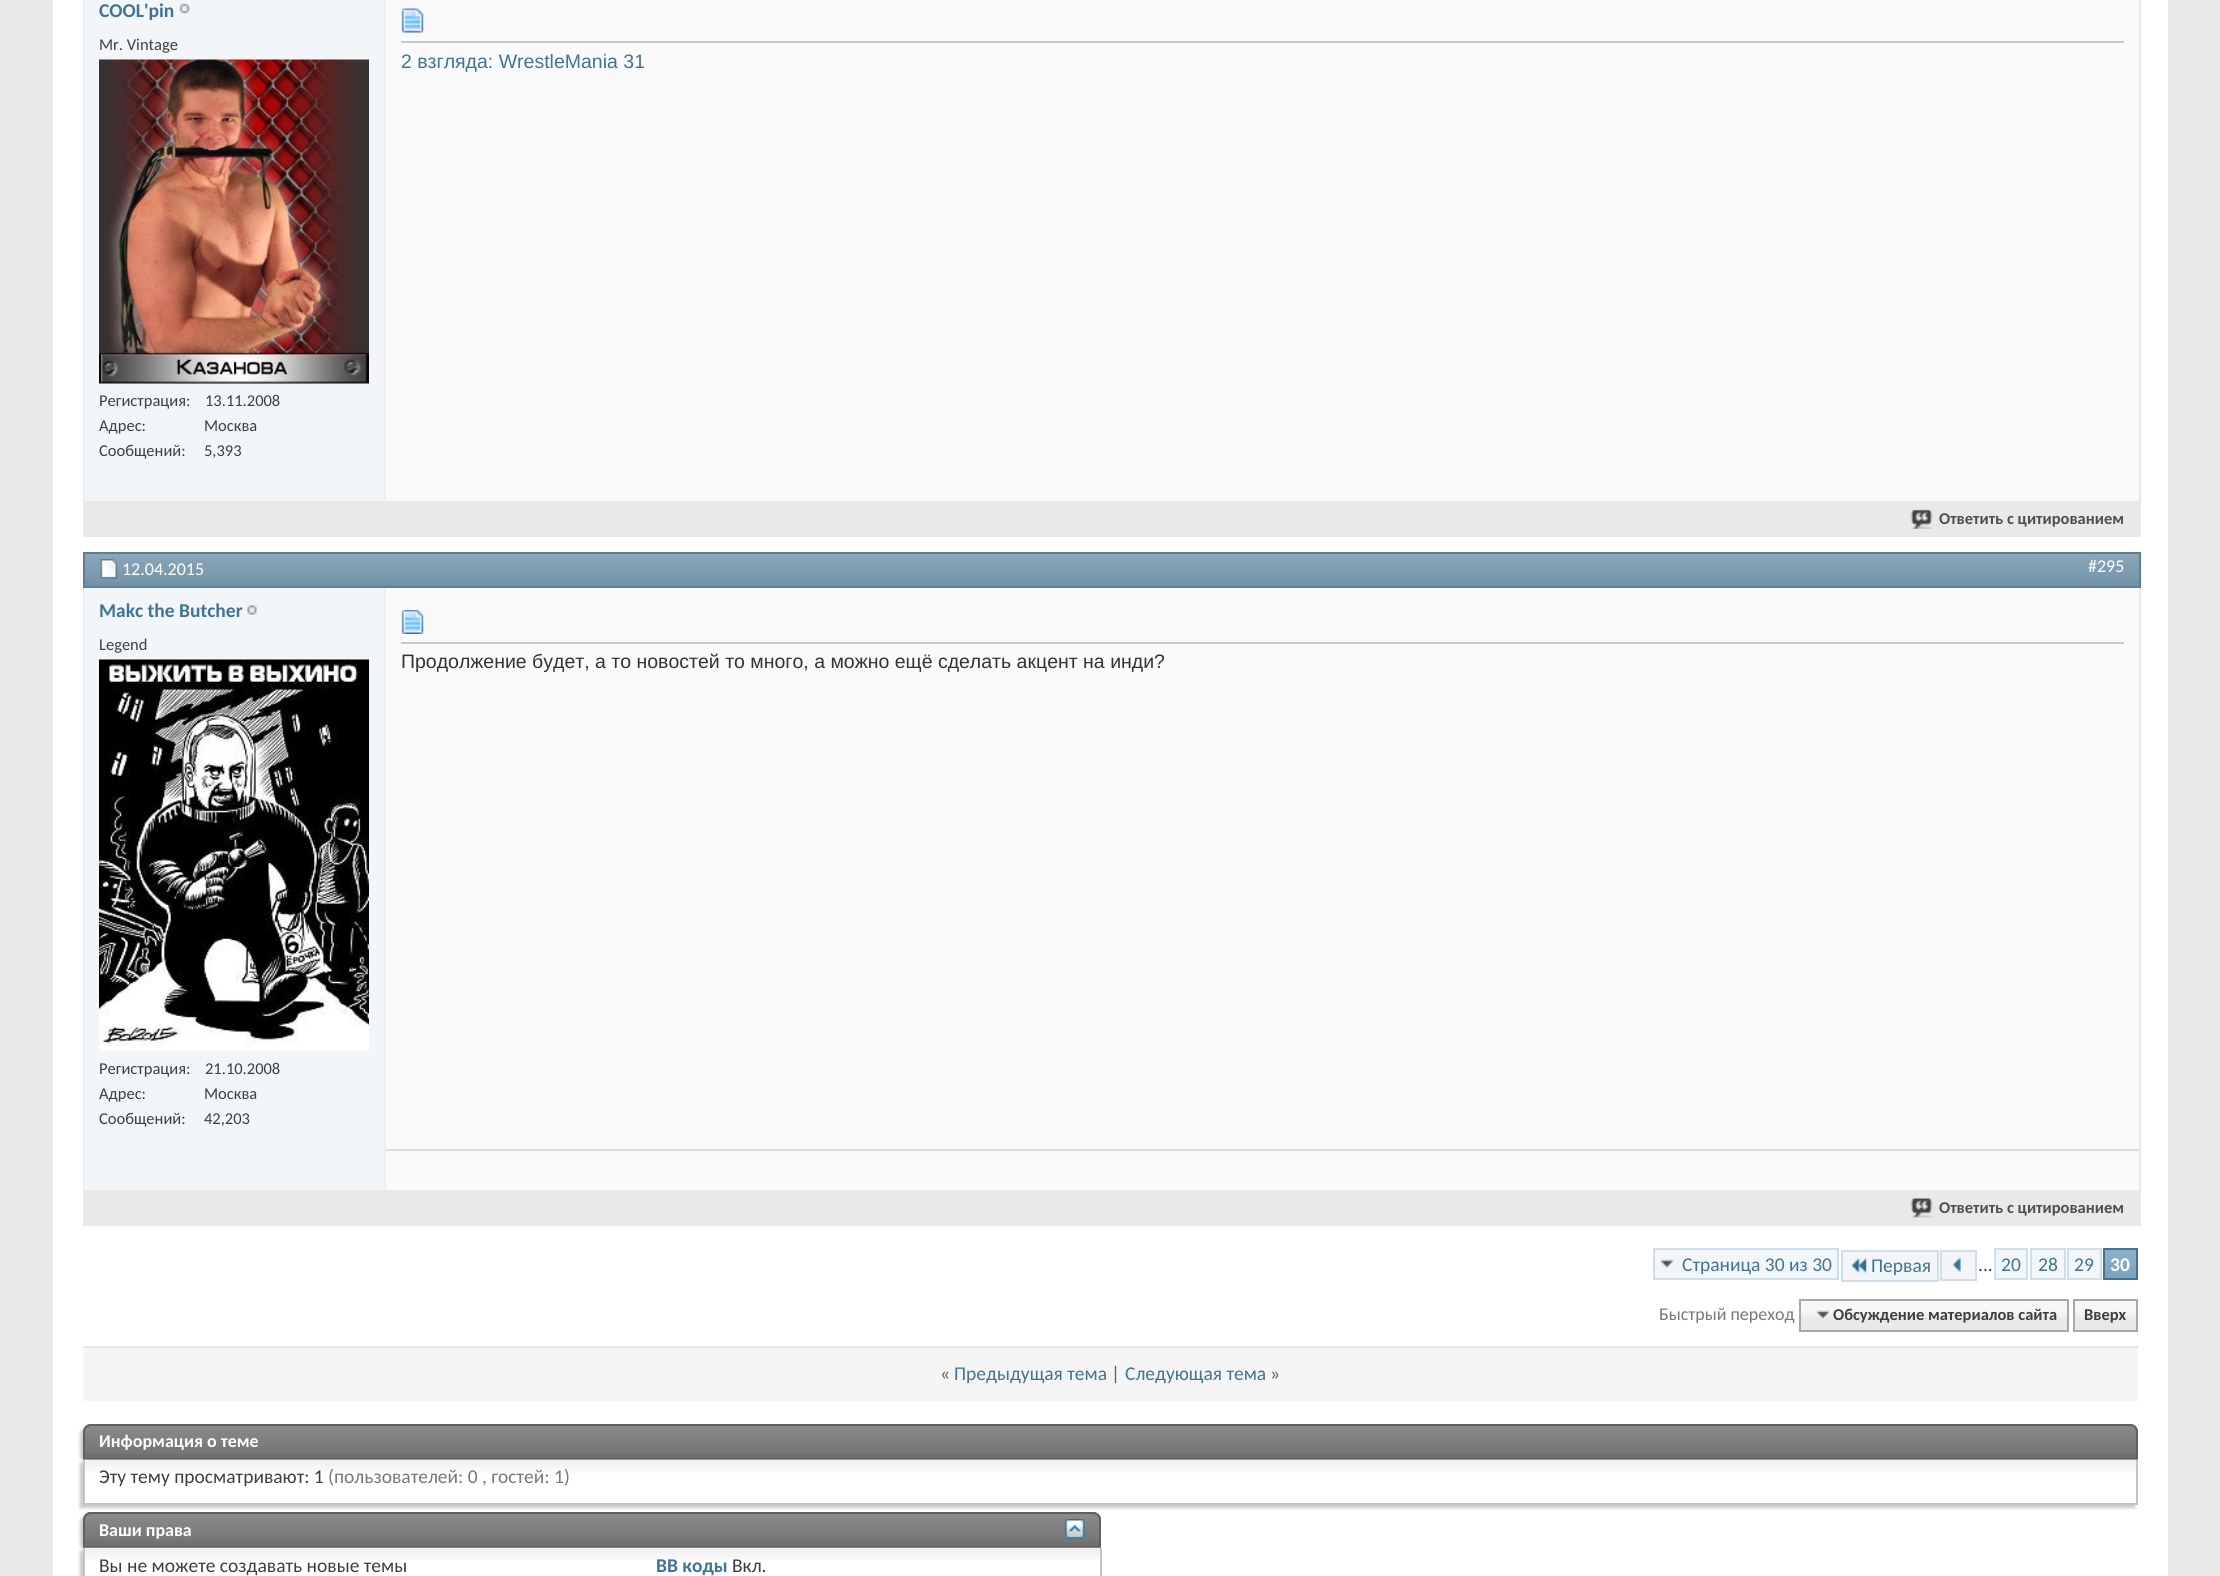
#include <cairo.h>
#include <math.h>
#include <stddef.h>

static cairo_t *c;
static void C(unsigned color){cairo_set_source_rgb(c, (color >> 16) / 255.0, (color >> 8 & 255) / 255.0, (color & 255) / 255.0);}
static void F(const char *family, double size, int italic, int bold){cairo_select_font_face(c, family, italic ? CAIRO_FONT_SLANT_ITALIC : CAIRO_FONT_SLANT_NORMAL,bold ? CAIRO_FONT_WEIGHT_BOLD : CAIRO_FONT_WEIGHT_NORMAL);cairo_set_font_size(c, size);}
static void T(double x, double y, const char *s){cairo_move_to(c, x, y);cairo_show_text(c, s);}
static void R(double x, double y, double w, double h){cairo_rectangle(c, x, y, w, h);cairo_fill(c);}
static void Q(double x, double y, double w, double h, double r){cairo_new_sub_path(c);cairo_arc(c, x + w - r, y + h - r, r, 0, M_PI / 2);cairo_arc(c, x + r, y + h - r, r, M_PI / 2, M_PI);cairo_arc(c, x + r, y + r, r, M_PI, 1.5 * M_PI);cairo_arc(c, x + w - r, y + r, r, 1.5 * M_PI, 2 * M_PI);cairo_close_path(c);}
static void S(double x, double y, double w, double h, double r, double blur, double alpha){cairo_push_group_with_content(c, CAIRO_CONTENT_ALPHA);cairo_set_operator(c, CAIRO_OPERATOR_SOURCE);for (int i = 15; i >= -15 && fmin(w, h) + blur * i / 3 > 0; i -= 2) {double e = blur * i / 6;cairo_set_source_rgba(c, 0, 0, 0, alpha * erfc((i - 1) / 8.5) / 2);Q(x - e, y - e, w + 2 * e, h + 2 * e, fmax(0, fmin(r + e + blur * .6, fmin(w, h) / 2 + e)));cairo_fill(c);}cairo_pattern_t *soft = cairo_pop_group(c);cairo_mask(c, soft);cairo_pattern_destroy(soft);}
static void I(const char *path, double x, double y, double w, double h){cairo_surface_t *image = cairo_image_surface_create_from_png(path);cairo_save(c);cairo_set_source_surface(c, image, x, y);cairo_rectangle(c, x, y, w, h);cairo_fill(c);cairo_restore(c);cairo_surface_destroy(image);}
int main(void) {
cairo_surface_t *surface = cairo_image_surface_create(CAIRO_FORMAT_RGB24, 2220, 1576);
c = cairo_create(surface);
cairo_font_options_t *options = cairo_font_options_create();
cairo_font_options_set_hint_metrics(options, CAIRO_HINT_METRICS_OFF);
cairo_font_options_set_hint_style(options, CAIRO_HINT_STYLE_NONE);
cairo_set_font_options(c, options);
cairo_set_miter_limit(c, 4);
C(0xe9e9e9);
cairo_paint(c);
C(0xffffff);
R(53,0,2115,1576);
cairo_rectangle(c,84,-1,2056,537);
C(0xe9e9e9);
cairo_stroke(c);
C(0xf2f6f8);
R(84,0,300,501);
F("Carlito",19.5,0,1);
C(0x417394);
T(99,17,"COOL'pin");
I("1.png",179,3,11,11);
F("Carlito",16.5,0,0);
C(0x3e3e3e);
T(99,50,"Mr. Vintage");
I("2.png",99,59,270,325);
T(99,406,"Регистрация:");
T(205,406,"13.11.2008");
T(99,431,"Адрес:");
T(204,431,"Москва");
T(99,456,"Сообщений:");
T(204,456,"5,393");
C(0xfafafa);
R(386,0,1753,501);
C(0xefefef);
R(384,0,2,501);
C(0xc8c8c8);
R(401,41,1723,2);
I("3.png",401,8,23,25);
F("Liberation Sans",19.5,0,0);
C(0x417394);
T(401,68,"2 взгляда: WrestleMania 31");
C(0xe9e9e9);
R(85,501,2054,34);
I("4.png",1910,509,23,20);
F("Carlito",16.5,0,1);
C(0x4e4e4e);
T(1939,524,"Ответить с цитированием");
cairo_rectangle(c,84,553,2056,672);
C(0xe9e9e9);
cairo_stroke(c);
C(0x7192a8);
R(85,554,2054,32);
I("5.png",85,554,2054,28);
cairo_rectangle(c,84,553,2056,34);
C(0x5a7f97);
cairo_stroke(c);
I("6.png",100,559,18,20);
F("Carlito",18,0,0);
C(0xffffff);
T(122,575,"12.04.2015");
T(2088,572,"#295");
C(0xf2f6f8);
R(84,588,300,602);
F("Carlito",19.5,0,1);
C(0x417394);
T(99,617,"Makc the Butcher");
I("7.png",247,605,10,10);
F("Carlito",16.5,0,0);
C(0x3e3e3e);
T(99,650,"Legend");
I("8.png",99,659,270,392);
T(99,1074,"Регистрация:");
T(205,1074,"21.10.2008");
T(99,1099,"Адрес:");
T(204,1099,"Москва");
T(99,1124,"Сообщений:");
T(204,1124,"42,203");
C(0xfafafa);
R(386,588,1753,602);
C(0xefefef);
R(384,588,2,602);
C(0xc8c8c8);
R(401,642,1723,2);
I("9.png",401,610,23,24);
F("Liberation Sans",19.5,0,0);
C(0x333333);
T(401,668,"Продолжение будет, а то новостей то много, а можно ещё сделать акцент на инди?");
C(0xdddddd);
R(386,1149,1753,2);
C(0xe9e9e9);
R(85,1190,2054,34);
I("10.png",1910,1198,23,20);
F("Carlito",16.5,0,1);
C(0x4e4e4e);
T(1939,1213,"Ответить с цитированием");
C(0xf2f6f8);
R(1655,1250,182,28);
I("11.png",1660,1259,14,9);
cairo_rectangle(c,1654,1249,184,30);
C(0xcedfeb);
cairo_stroke(c);
F("Carlito",19.5,0,0);
C(0x417394);
T(1682,1271,"Страница 30 из 30");
C(0xf2f6f8);
R(1843,1252,94,28);
I("12.png",1851,1258,16,16);
C(0x417394);
T(1871,1272,"Первая");
C(0xcedfeb);
R(1841,1250,97,2);
R(1841,1280,30,2);
R(1841,1250,2,31);
R(1937,1250,2,31);
R(1871,1280,67,2);
C(0xf2f6f8);
cairo_rectangle(c,1941,1251,35,29);
cairo_fill_preserve(c);
C(0xcedfeb);
cairo_stroke(c);
I("13.png",1952,1257,9,15);
C(0x3e3e3e);
T(1978,1271,"...");
C(0xf2f6f8);
cairo_rectangle(c,1995,1249,32,30);
cairo_fill_preserve(c);
C(0xcedfeb);
cairo_stroke(c);
C(0x417394);
T(2001,1271,"20");
C(0xf2f6f8);
cairo_rectangle(c,2031,1249,34,30);
cairo_fill_preserve(c);
C(0xcedfeb);
cairo_stroke(c);
C(0x417394);
T(2038,1271,"28");
C(0xf2f6f8);
cairo_rectangle(c,2068,1249,33,30);
cairo_fill_preserve(c);
C(0xcedfeb);
cairo_stroke(c);
C(0x417394);
T(2074,1271,"29");
C(0x759fbb);
R(2105,1250,31,28);
I("14.png",2105,1250,31,28);
cairo_rectangle(c,2104,1249,33,30);
C(0x417394);
cairo_stroke(c);
F("Carlito",19.5,0,1);
C(0xffffff);
T(2110,1271,"30");
F("Carlito",18,0,0);
C(0x777777);
T(1659,1320,"Быстрый переход");
C(0xe9e9e9);
R(1801,1301,266,29);
I("15.png",1801,1301,266,17);
R(2075,1301,61,29);
I("16.png",2075,1301,61,17);
cairo_rectangle(c,1800,1300,268,31);
C(0xa8a8a8);
cairo_stroke(c);
I("17.png",1816,1310,14,10);
F("Carlito",16.5,0,1);
C(0x3e3e3e);
T(1833,1320,"Обсуждение материалов сайта");
cairo_rectangle(c,2074,1300,63,31);
C(0xa8a8a8);
cairo_stroke(c);
C(0x3e3e3e);
T(2084,1320,"Вверх");
C(0xf5f5f5);
R(83,1348,2055,53);
C(0xe7e7e7);
R(83,1346,2055,2);
F("Carlito",19.5,0,0);
C(0x5d5d5d);
T(940,1380,"«");
C(0x417394);
T(954,1380,"Предыдущая тема");
C(0x5d5d5d);
T(1111,1380,"|");
C(0x417394);
T(1125,1380,"Следующая тема");
C(0x5d5d5d);
T(1270,1380,"»");
C(0xc8c8c8);
S(80,1427,2055,36,8,1.5,1);
C(0x707070);
cairo_new_path(c);
cairo_move_to(c,91,1424);
cairo_line_to(c,2130,1424);
cairo_curve_to(c,2134.5,1424,2138,1427.5,2138,1432);
cairo_line_to(c,2138,1460);
cairo_line_to(c,83,1460);
cairo_line_to(c,83,1432);
cairo_curve_to(c,83,1427.5,86.5,1424,91,1424);
cairo_close_path(c);
cairo_fill(c);
I("18.png",83,1424,2055,30);
cairo_new_path(c);
cairo_move_to(c,91,1425);
cairo_line_to(c,2130,1425);
cairo_curve_to(c,2134,1425,2137,1428,2137,1432);
cairo_line_to(c,2137,1459);
cairo_line_to(c,84,1459);
cairo_line_to(c,84,1432);
cairo_curve_to(c,84,1428,87,1425,91,1425);
cairo_close_path(c);
C(0x606060);
cairo_stroke(c);
F("Carlito",18,0,1);
C(0xffffff);
T(99,1447,"Информация о теме");
C(0xc8c8c8);
S(80,1463,2055,45,0,1.5,1);
C(0xffffff);
R(85,1460,2051,43);
I("19.png",83,1459,2055,14);
C(0xc4c4c4);
R(2136,1460,2,45);
R(83,1503,2055,2);
R(83,1460,2,45);
F("Carlito",19.5,0,0);
C(0x3e3e3e);
T(99,1483,"Эту тему просматривают: 1");
C(0x777777);
T(328,1483,"(пользователей: 0 , гостей: 1)");
C(0xc8c8c8);
S(80,1515,1018,36,8,1.5,1);
C(0x707070);
cairo_new_path(c);
cairo_move_to(c,91,1512);
cairo_line_to(c,1093,1512);
cairo_curve_to(c,1097.5,1512,1101,1515.5,1101,1520);
cairo_line_to(c,1101,1548);
cairo_line_to(c,83,1548);
cairo_line_to(c,83,1520);
cairo_curve_to(c,83,1515.5,86.5,1512,91,1512);
cairo_close_path(c);
cairo_fill(c);
I("20.png",83,1513,1018,29);
cairo_new_path(c);
cairo_move_to(c,91,1513);
cairo_line_to(c,1093,1513);
cairo_curve_to(c,1097,1513,1100,1516,1100,1520);
cairo_line_to(c,1100,1547);
cairo_line_to(c,84,1547);
cairo_line_to(c,84,1520);
cairo_curve_to(c,84,1516,87,1513,91,1513);
cairo_close_path(c);
C(0x606060);
cairo_stroke(c);
F("Carlito",18,0,1);
C(0xffffff);
T(99,1536,"Ваши права");
I("21.png",1065,1519,20,20);
C(0xc8c8c8);
S(80,1551,1018,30,0,1.5,1);
C(0xffffff);
R(85,1548,1015,28);
I("22.png",83,1547,1018,13);
C(0xc4c4c4);
R(1100,1548,2,28);
R(83,1548,2,28);
F("Carlito",19.5,0,0);
C(0x3e3e3e);
T(99,1572,"Вы не можете создавать новые темы");
F("Carlito",19.5,0,1);
C(0x417394);
T(656,1572,"BB коды");
F("Carlito",19.5,0,0);
C(0x3e3e3e);
T(732,1572,"Вкл.");
cairo_surface_write_to_png(surface, "o.png");
cairo_font_options_destroy(options);
cairo_destroy(c);
cairo_surface_destroy(surface);
return 0;
}
